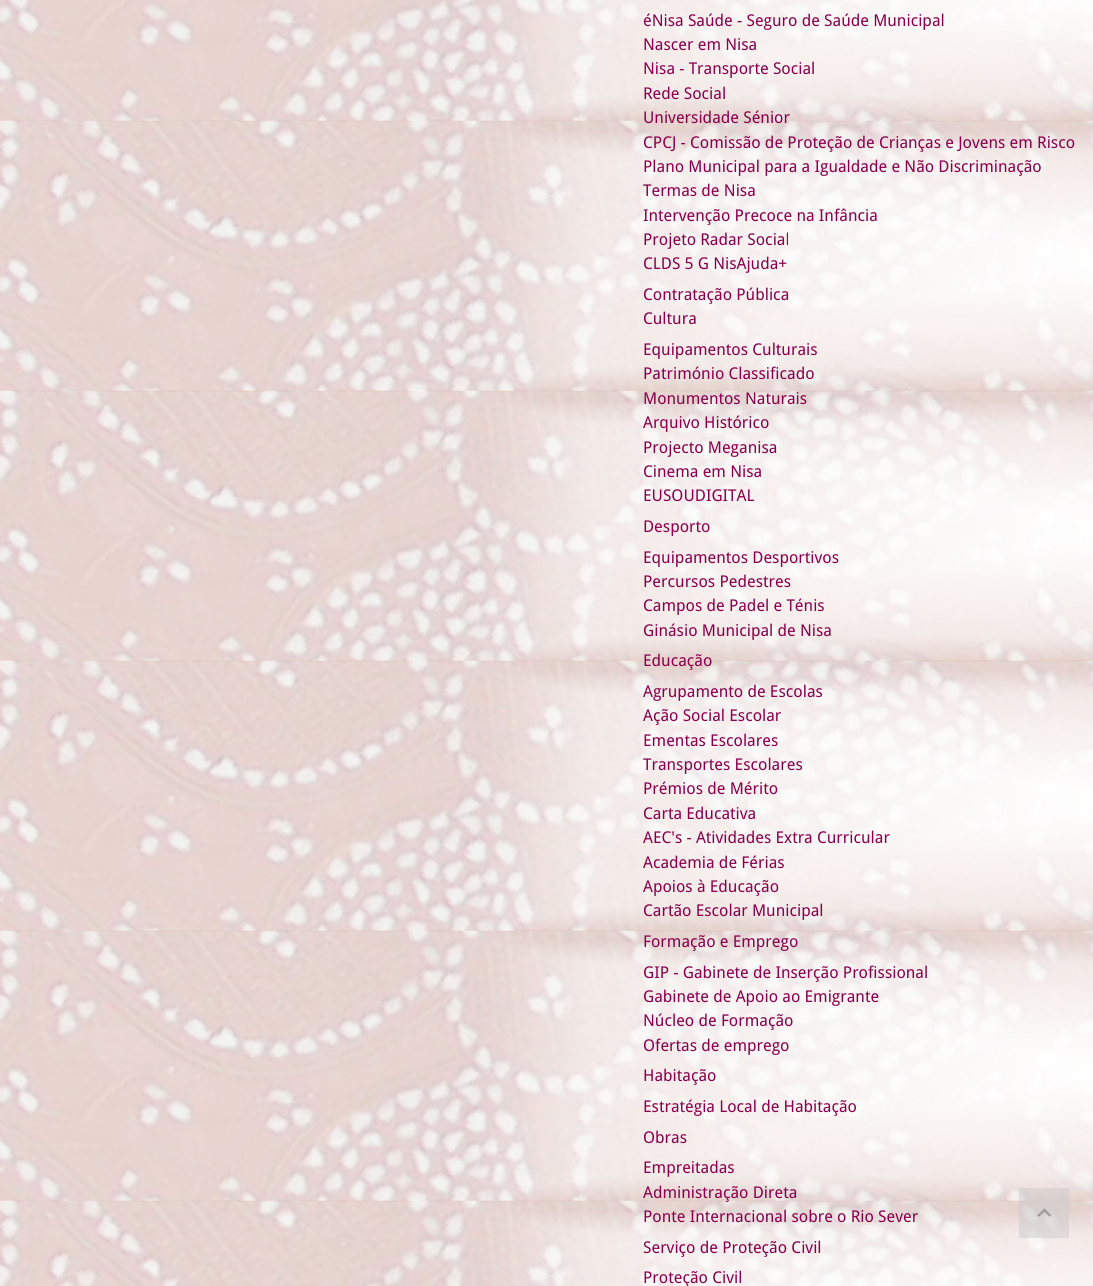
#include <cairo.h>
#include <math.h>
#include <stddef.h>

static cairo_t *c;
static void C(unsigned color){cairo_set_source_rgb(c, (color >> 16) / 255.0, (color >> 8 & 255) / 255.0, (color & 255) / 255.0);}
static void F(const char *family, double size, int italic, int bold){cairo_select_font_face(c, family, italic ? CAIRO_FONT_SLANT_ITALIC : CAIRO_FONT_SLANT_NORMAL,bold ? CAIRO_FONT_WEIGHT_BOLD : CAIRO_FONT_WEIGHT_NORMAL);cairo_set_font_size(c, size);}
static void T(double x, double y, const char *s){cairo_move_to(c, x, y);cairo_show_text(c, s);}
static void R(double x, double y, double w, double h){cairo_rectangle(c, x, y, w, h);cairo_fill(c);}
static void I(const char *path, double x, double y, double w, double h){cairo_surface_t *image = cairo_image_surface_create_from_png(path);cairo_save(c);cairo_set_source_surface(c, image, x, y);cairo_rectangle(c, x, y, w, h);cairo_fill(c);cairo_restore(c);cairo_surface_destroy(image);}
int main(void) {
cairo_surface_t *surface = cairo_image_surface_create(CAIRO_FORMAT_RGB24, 1093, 1286);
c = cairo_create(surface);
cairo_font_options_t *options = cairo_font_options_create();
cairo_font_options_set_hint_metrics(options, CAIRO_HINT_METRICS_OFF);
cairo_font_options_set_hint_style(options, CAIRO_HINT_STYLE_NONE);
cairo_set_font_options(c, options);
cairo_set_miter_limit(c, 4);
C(0xffffff);
cairo_paint(c);
I("1.png",0,0,1093,1286);
F("Droid Sans",16.25,0,0);
C(0x8a004d);
T(643,26,"éNisa Saúde - Seguro de Saúde Municipal");
T(643,50,"Nascer em Nisa");
T(643,74,"Nisa - Transporte Social");
T(643,99,"Rede Social");
T(643,123,"Universidade Sénior");
T(643,148,"CPCJ - Comissão de Proteção de Crianças e Jovens em Risco");
T(643,172,"Plano Municipal para a Igualdade e Não Discriminação");
T(643,196,"Termas de Nisa");
T(643,221,"Intervenção Precoce na Infância");
T(643,245,"Projeto Radar Social");
T(643,269,"CLDS 5 G NisAjuda+");
T(643,300,"Contratação Pública");
T(643,324,"Cultura");
T(643,355,"Equipamentos Culturais");
T(643,379,"Património Classificado");
T(643,404,"Monumentos Naturais");
T(643,428,"Arquivo Histórico");
T(643,453,"Projecto Meganisa");
T(643,477,"Cinema em Nisa");
T(643,501,"EUSOUDIGITAL");
T(643,532,"Desporto");
T(643,563,"Equipamentos Desportivos");
T(643,587,"Percursos Pedestres");
T(643,611,"Campos de Padel e Ténis");
T(643,636,"Ginásio Municipal de Nisa");
T(643,666,"Educação");
T(643,697,"Agrupamento de Escolas");
T(643,721,"Ação Social Escolar");
T(643,746,"Ementas Escolares");
T(643,770,"Transportes Escolares");
T(643,794,"Prémios de Mérito");
T(643,819,"Carta Educativa");
T(643,843,"AEC's - Atividades Extra Curricular");
T(643,868,"Academia de Férias");
T(643,892,"Apoios à Educação");
T(643,916,"Cartão Escolar Municipal");
T(643,947,"Formação e Emprego");
T(643,978,"GIP - Gabinete de Inserção Profissional");
T(643,1002,"Gabinete de Apoio ao Emigrante");
T(643,1026,"Núcleo de Formação");
T(643,1051,"Ofertas de emprego");
T(643,1081,"Habitação");
T(643,1112,"Estratégia Local de Habitação");
T(643,1143,"Obras");
T(643,1173,"Empreitadas");
T(643,1198,"Administração Direta");
T(643,1222,"Ponte Internacional sobre o Rio Sever");
T(643,1253,"Serviço de Proteção Civil");
T(643,1283,"Proteção Civil");
cairo_set_source_rgba(c,0.8,0.8,0.8,0.5);
R(1019,1188,50,50);
I("2.png",1036,1208,16,9);
cairo_surface_write_to_png(surface, "o.png");
cairo_font_options_destroy(options);
cairo_destroy(c);
cairo_surface_destroy(surface);
return 0;
}
